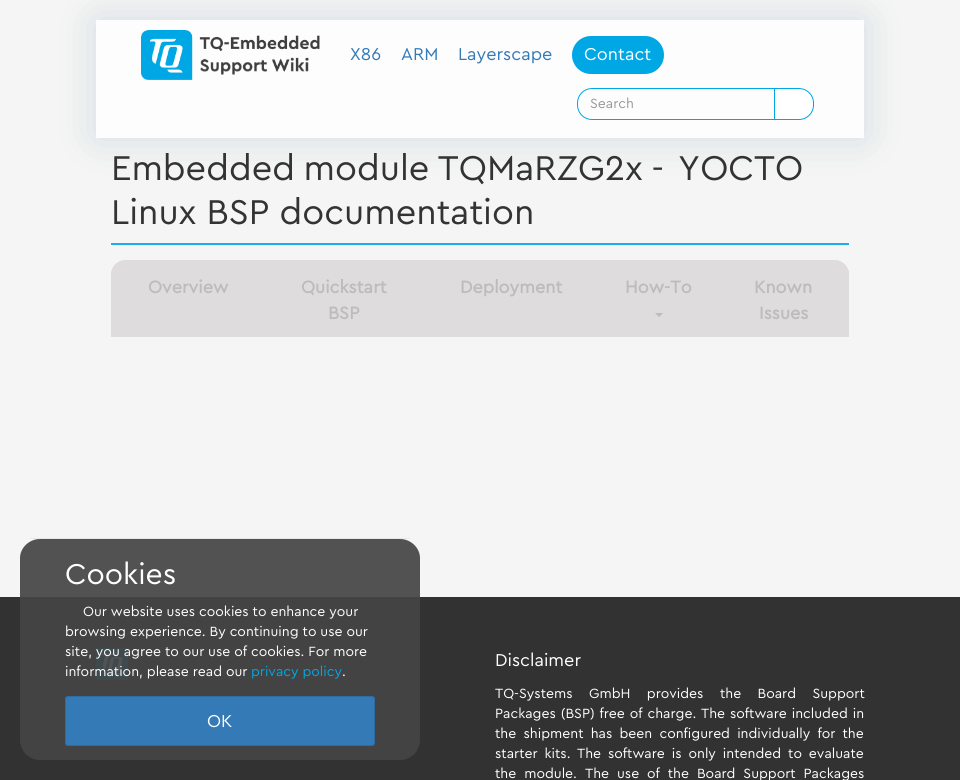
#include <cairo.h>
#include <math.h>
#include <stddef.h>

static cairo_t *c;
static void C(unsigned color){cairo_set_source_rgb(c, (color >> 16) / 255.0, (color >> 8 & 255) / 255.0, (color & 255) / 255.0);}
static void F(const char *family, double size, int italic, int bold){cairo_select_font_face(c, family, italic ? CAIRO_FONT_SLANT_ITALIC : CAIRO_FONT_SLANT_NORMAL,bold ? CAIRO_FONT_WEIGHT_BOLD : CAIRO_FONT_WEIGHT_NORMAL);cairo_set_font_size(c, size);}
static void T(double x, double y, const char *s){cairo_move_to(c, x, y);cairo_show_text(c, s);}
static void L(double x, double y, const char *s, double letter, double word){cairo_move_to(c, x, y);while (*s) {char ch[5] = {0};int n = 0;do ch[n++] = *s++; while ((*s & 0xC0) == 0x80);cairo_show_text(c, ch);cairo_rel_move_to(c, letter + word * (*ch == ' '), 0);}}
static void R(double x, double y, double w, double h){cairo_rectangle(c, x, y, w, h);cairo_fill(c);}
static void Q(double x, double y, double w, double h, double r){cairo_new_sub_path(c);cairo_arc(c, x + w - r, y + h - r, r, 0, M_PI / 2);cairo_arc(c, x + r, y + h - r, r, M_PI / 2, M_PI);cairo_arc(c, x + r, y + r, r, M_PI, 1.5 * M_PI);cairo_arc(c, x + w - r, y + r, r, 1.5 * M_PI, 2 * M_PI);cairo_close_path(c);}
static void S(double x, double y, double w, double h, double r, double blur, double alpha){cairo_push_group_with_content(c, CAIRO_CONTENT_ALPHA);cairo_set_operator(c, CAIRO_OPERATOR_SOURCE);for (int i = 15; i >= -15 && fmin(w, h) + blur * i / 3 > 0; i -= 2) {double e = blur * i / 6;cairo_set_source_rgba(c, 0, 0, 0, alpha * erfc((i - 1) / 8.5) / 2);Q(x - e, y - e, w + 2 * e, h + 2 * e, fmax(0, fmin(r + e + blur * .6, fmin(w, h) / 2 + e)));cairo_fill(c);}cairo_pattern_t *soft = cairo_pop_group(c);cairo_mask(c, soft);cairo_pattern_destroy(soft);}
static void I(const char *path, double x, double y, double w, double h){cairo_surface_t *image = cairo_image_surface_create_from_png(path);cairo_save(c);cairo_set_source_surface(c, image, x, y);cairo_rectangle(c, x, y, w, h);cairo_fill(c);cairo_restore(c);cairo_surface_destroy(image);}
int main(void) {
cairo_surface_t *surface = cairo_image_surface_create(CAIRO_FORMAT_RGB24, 960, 780);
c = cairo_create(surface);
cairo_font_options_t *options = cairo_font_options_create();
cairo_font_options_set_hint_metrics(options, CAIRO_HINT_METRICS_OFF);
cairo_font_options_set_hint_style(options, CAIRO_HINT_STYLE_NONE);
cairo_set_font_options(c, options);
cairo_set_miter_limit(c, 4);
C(0xf5f5f5);
cairo_paint(c);
C(0x004a65);
S(96,20,768,118,0,20,.15);
C(0xfdfdfd);
R(96,20,768,118);
I("1.png",141,30,179,50);
F("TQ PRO",18,0,0);
C(0x337ab7);
T(350,60,"X86");
T(401,60,"ARM");
T(458,60,"Layerscape");
C(0x00a7e5);
Q(572,36,92,38,19);
cairo_fill(c);
C(0xffffff);
T(584,60,"Contact");
cairo_new_path(c);
cairo_move_to(c,592,88.5);
cairo_line_to(c,774.5,88.5);
cairo_line_to(c,774.5,119.5);
cairo_line_to(c,592,119.5);
cairo_curve_to(c,584,119.5,577.5,113,577.5,105);
cairo_line_to(c,577.5,103);
cairo_curve_to(c,577.5,95,584,88.5,592,88.5);
cairo_close_path(c);
C(0x00a7e5);
cairo_set_line_width(c,1);
cairo_stroke(c);
F("TQ PRO",14,0,0);
C(0x999999);
T(590,108,"Search");
C(0xffffff);
cairo_new_path(c);
cairo_move_to(c,774.5,88.5);
cairo_line_to(c,799,88.5);
cairo_curve_to(c,807,88.5,813.5,95,813.5,103);
cairo_line_to(c,813.5,105);
cairo_curve_to(c,813.5,113,807,119.5,799,119.5);
cairo_line_to(c,774.5,119.5);
cairo_close_path(c);
cairo_fill_preserve(c);
C(0x00a7e5);
cairo_stroke(c);
C(0x1ab0e8);
R(111,243,738,2);
F("TQ PRO",36,0,0);
C(0x333333);
L(111,180,"Embedded module TQMaRZG2x -",0,-1.5);
L(678,180,"YOCTO",0,-1.5);
T(111,224,"Linux BSP documentation");
C(0xdedcdc);
cairo_new_path(c);
cairo_move_to(c,126,260);
cairo_line_to(c,834,260);
cairo_curve_to(c,842.5,260,849,266.5,849,275);
cairo_line_to(c,849,337);
cairo_line_to(c,111,337);
cairo_line_to(c,111,275);
cairo_curve_to(c,111,266.5,117.5,260,126,260);
cairo_close_path(c);
cairo_fill(c);
cairo_new_path(c);
cairo_move_to(c,126,260);
cairo_line_to(c,250,260);
cairo_curve_to(c,258.5,260,265,266.5,265,275);
cairo_line_to(c,265,311);
cairo_line_to(c,111,311);
cairo_line_to(c,111,275);
cairo_curve_to(c,111,266.5,117.5,260,126,260);
cairo_close_path(c);
cairo_fill(c);
F("TQ PRO",18,0,1);
C(0xbcbcbc);
T(148,293,"Overview");
T(301,293,"Quickstart");
T(328,319,"BSP");
T(460,293,"Deployment");
T(625,293,"How-To");
cairo_new_path(c);
cairo_move_to(c,655,313);
cairo_line_to(c,663,313);
cairo_line_to(c,659,317);
cairo_close_path(c);
cairo_fill(c);
C(0xdedcdc);
cairo_new_path(c);
cairo_move_to(c,733,260);
cairo_line_to(c,834,260);
cairo_curve_to(c,842.5,260,849,266.5,849,275);
cairo_line_to(c,849,337);
cairo_line_to(c,718,337);
cairo_line_to(c,718,275);
cairo_curve_to(c,718,266.5,724.5,260,733,260);
cairo_close_path(c);
cairo_fill(c);
cairo_set_fill_rule(c,CAIRO_FILL_RULE_EVEN_ODD);
cairo_new_path(c);
cairo_move_to(c,733,260);
cairo_line_to(c,834,260);
cairo_curve_to(c,842,260,849,267,849,275);
cairo_line_to(c,849,337);
cairo_line_to(c,718,337);
cairo_line_to(c,718,275);
cairo_curve_to(c,718,267,725,260,733,260);
cairo_close_path(c);
cairo_move_to(c,733,265);
cairo_line_to(c,834,265);
cairo_curve_to(c,840,265,844,269,844,275);
cairo_line_to(c,844,337);
cairo_line_to(c,723,337);
cairo_line_to(c,723,275);
cairo_curve_to(c,723,269,727,265,733,265);
cairo_close_path(c);
cairo_fill(c);
C(0xbcbcbc);
T(754,293,"Known");
T(759,319,"Issues");
C(0x323232);
R(0,597,960,183);
I("2.png",96,648,32,32);
cairo_set_source_rgba(c,0.271,0.271,0.271,0.92);
cairo_set_fill_rule(c,CAIRO_FILL_RULE_WINDING);
cairo_new_path(c);
cairo_move_to(c,40,539);
cairo_line_to(c,400,539);
cairo_curve_to(c,411,539,420,548,420,558);
cairo_line_to(c,420,740);
cairo_curve_to(c,420,751,411,760,400,760);
cairo_line_to(c,40,760);
cairo_curve_to(c,29,760,20,751,20,740);
cairo_line_to(c,20,558);
cairo_curve_to(c,20,548,29,539,40,539);
cairo_close_path(c);
cairo_fill(c);
C(0xe7e7e7);
R(30,538,380,1);
F("TQ PRO",30,0,0);
C(0xffffff);
T(65,584,"Cookies");
F("TQ PRO",14,0,0);
T(83,616,"Our website uses cookies to enhance your");
T(65,636,"browsing experience. By continuing to use our");
T(65,656,"site, you agree to our use of cookies. For more");
T(65,676,"information, please read our");
C(0x00a7e5);
T(251,676,"privacy policy");
C(0xffffff);
T(342,676,".");
C(0x337ab7);
Q(65.5,696.5,309,49,2.5);
cairo_fill_preserve(c);
C(0x2e6da4);
cairo_stroke(c);
F("TQ PRO",18,0,0);
C(0xffffff);
T(207,727,"OK");
T(495,666,"Disclaimer");
F("TQ PRO",14,0,0);
L(495,698,"TQ-Systems GmbH provides the Board Support",0,12.5);
L(495,718,"Packages (BSP) free of charge.",0,1);
L(701,718,"The software included in",0,1);
L(495,738,"the shipment has been configured individually for the",0,3.25);
L(495,758,"starter kits.",0,3);
L(577,758,"The software is only intended to evaluate",0,3);
L(495,778,"the module.",0,4);
L(585,778,"The use of the Board Support Packages",0,4);
cairo_surface_write_to_png(surface, "o.png");
cairo_font_options_destroy(options);
cairo_destroy(c);
cairo_surface_destroy(surface);
return 0;
}
